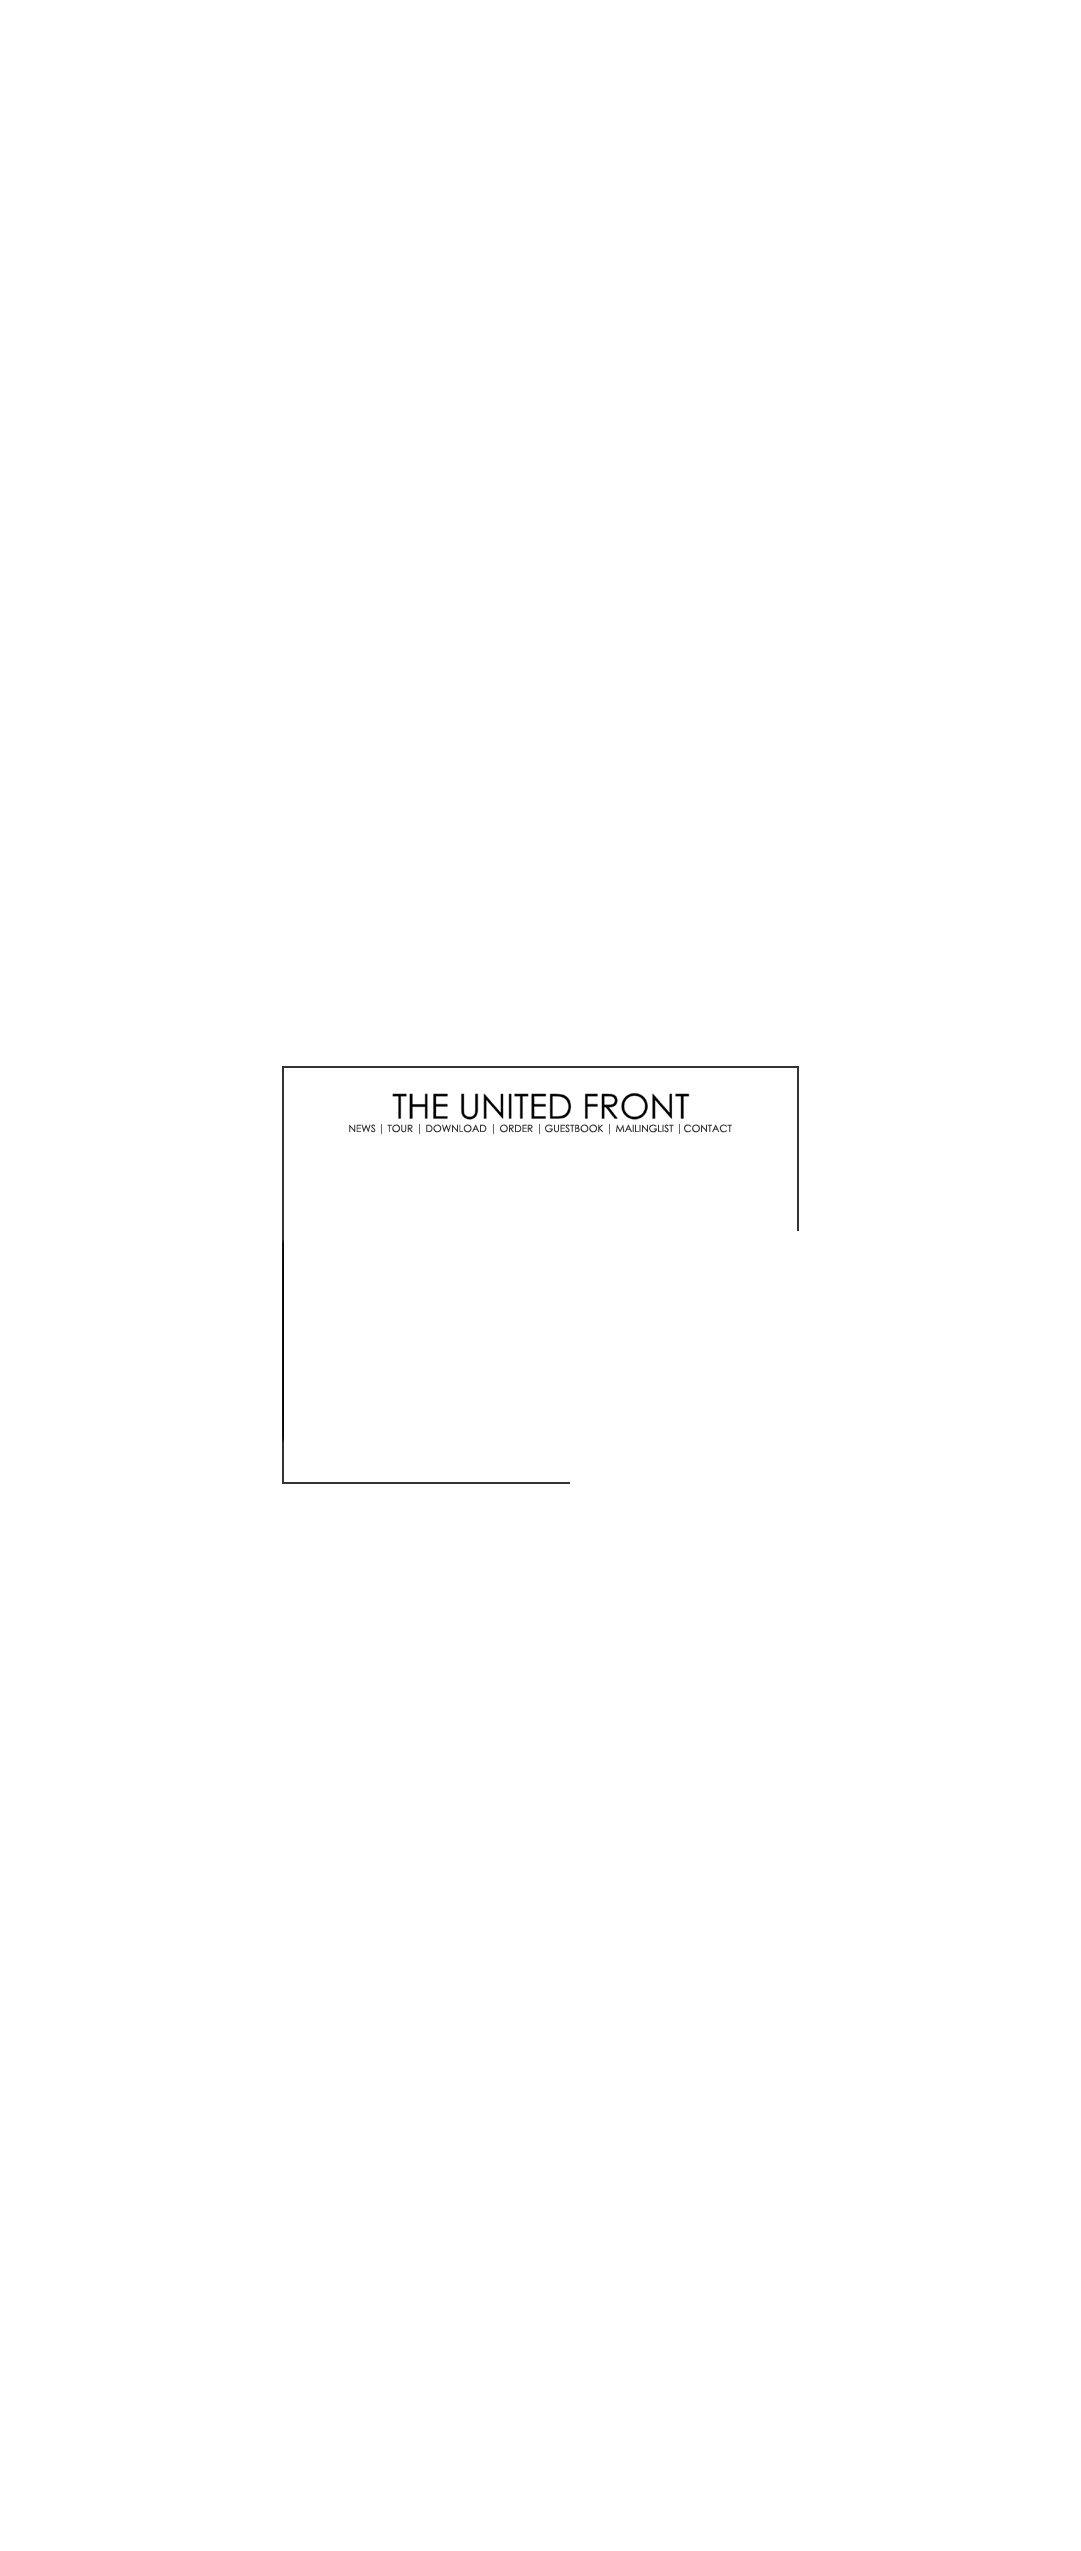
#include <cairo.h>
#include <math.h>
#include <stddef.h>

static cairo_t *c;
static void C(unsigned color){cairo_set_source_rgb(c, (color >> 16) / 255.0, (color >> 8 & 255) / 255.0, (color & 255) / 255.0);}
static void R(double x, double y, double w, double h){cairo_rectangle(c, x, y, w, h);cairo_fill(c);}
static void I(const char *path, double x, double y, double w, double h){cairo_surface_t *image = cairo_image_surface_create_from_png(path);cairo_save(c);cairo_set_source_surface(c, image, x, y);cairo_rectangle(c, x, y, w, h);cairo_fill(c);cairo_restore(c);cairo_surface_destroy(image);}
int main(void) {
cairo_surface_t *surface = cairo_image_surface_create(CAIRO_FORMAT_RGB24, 1081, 2551);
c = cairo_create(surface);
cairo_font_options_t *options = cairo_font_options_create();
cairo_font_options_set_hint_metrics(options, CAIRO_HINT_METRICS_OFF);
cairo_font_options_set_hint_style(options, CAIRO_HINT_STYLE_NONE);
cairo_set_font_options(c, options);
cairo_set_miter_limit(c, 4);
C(0xffffff);
cairo_paint(c);
I("1.png",282,1066,517,55);
C(0x333333);
R(282,1121,2,110);
I("2.png",349,1124,33,10);
I("3.png",387,1124,33,10);
I("4.png",426,1124,68,10);
I("5.png",500,1124,40,10);
I("6.png",545,1124,65,10);
I("7.png",616,1124,64,10);
I("8.png",684,1124,48,9);
R(797,1121,2,110);
I("9.png",282,1231,2,242);
I("10.png",282,1473,288,11);
cairo_surface_write_to_png(surface, "o.png");
cairo_font_options_destroy(options);
cairo_destroy(c);
cairo_surface_destroy(surface);
return 0;
}
